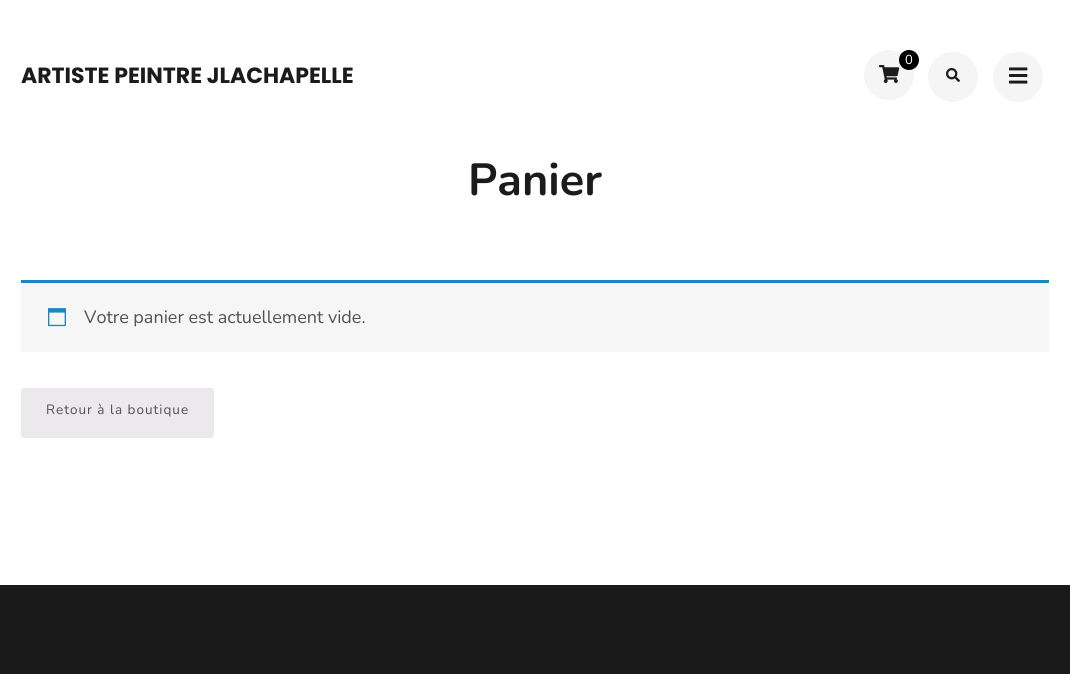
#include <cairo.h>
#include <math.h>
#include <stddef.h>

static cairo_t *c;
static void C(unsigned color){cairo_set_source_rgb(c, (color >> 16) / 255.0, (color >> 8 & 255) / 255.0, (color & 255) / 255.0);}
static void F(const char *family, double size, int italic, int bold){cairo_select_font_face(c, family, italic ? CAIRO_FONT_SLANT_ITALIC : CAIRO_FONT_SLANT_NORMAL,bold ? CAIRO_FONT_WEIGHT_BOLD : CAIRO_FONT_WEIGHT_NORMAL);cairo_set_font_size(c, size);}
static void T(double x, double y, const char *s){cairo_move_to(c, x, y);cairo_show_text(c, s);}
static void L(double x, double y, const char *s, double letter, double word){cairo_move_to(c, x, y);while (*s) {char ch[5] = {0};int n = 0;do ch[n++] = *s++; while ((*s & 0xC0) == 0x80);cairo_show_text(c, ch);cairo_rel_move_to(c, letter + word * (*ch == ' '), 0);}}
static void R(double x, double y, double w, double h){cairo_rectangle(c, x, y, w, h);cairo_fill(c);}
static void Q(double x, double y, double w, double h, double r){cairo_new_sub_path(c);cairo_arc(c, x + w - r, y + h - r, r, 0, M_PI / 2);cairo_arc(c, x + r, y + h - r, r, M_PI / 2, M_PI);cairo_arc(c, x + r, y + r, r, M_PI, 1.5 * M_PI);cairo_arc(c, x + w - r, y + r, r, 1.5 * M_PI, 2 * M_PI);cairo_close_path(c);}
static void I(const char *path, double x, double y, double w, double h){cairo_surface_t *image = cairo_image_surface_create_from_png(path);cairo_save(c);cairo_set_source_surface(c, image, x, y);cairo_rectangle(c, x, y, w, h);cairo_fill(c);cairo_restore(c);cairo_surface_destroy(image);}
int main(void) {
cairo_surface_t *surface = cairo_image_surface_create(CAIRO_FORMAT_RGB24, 1070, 674);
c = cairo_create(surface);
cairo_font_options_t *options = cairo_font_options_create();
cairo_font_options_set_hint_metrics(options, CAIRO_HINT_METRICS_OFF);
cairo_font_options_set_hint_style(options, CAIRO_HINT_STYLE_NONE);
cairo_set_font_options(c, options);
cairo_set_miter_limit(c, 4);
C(0xffffff);
cairo_paint(c);
C(0xf5f5f5);
cairo_arc(c,889,75,25,0,2 * M_PI);
cairo_fill(c);
I("1.png",879,65,21,18);
C(0x000000);
cairo_arc(c,909,60,10,0,2 * M_PI);
cairo_fill(c);
F("Nunito",13,0,0);
C(0xffffff);
T(905,64,"0");
C(0xf5f5f5);
cairo_new_path(c);
cairo_arc(c,953,77,25,0,2 * M_PI);
cairo_fill(c);
I("2.png",946,68,14,14);
cairo_arc(c,1018,77,25,0,2 * M_PI);
cairo_fill(c);
I("3.png",1009,67,19,17);
F("Poppins",22,0,1);
C(0x1c1b1b);
T(21,83,"ARTISTE PEINTRE JLACHAPELLE");
F("Nunito",45,0,1);
T(468,195,"Panier");
C(0xf7f6f7);
R(21,283,1028,69);
C(0x1e85be);
R(21,280,1028,3);
I("4.png",48,308,18,19);
F("Nunito",18,0,0);
C(0x515151);
T(84,323,"Votre panier est actuellement vide.");
C(0xebe9eb);
Q(21,388,193,50,3);
cairo_fill(c);
F("Nunito",13.5,0,0);
C(0x515151);
L(46,414,"Retour à la boutique",1,0);
C(0x1b1a1a);
R(0,585,1070,89);
cairo_surface_write_to_png(surface, "o.png");
cairo_font_options_destroy(options);
cairo_destroy(c);
cairo_surface_destroy(surface);
return 0;
}
